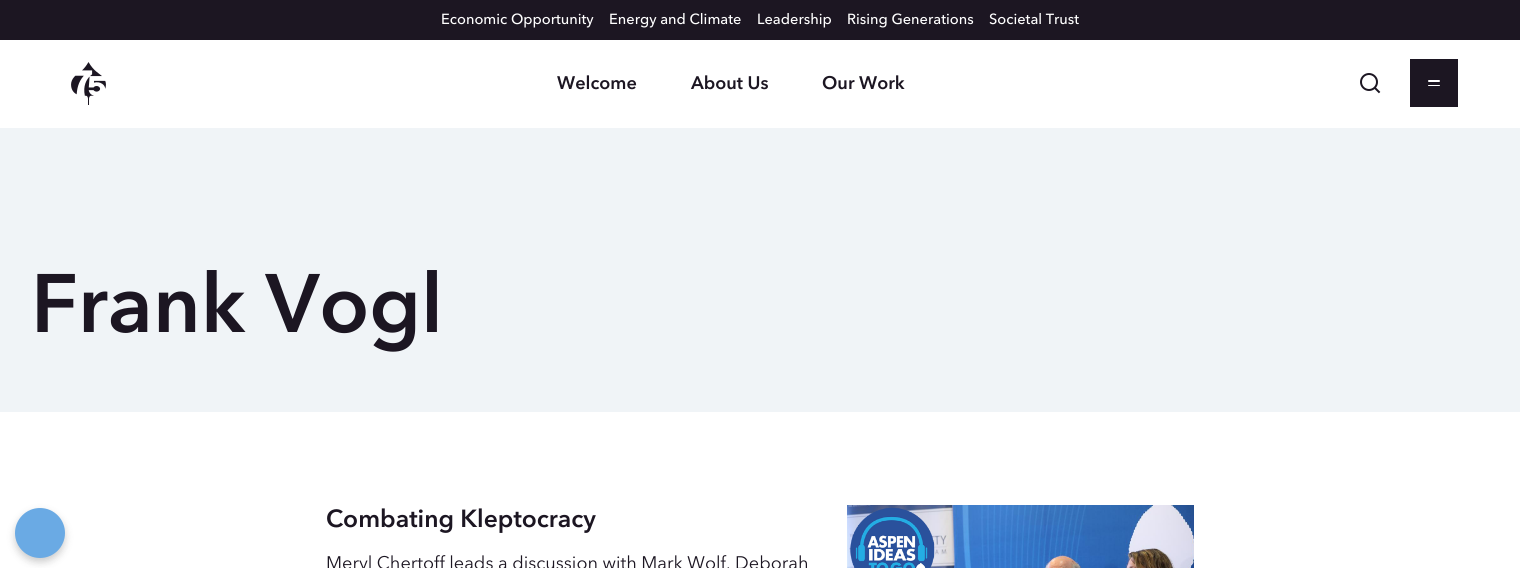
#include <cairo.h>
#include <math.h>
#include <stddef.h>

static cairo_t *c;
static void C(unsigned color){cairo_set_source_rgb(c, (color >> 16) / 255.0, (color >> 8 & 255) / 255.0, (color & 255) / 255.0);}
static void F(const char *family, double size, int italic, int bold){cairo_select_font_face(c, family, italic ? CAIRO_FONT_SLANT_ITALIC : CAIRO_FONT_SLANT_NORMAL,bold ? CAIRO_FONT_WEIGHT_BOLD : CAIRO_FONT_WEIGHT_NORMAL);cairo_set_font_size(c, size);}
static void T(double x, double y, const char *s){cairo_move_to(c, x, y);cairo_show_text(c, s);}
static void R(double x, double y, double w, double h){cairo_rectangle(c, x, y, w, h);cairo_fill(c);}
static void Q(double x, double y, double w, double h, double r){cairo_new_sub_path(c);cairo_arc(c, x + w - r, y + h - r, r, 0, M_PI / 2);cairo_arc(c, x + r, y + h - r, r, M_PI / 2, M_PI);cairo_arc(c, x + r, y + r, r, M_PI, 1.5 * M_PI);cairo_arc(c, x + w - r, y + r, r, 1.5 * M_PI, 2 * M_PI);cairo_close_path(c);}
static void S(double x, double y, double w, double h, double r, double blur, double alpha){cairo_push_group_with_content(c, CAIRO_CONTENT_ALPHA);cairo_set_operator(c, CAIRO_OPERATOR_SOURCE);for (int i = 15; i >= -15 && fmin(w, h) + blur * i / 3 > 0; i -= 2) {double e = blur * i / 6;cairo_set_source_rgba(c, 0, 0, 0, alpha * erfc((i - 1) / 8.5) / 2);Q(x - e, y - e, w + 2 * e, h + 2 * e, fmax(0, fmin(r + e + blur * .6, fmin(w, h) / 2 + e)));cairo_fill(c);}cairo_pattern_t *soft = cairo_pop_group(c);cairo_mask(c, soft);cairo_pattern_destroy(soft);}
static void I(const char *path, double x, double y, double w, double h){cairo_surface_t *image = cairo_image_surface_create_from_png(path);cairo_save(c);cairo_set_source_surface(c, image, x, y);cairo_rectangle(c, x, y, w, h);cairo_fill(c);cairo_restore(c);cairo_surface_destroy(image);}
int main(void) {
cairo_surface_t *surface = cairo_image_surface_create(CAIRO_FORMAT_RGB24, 1520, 568);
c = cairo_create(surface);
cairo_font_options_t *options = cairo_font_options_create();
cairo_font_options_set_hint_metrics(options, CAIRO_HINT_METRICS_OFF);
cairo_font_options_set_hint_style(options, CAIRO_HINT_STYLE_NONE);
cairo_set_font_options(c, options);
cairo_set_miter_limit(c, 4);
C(0xffffff);
cairo_paint(c);
C(0x1c1622);
R(0,0,1520,40);
F("Avenir Next Medium",14.6,0,0);
C(0xffffff);
T(441,24,"Economic Opportunity");
T(609,24,"Energy and Climate");
T(757,24,"Leadership");
T(847,24,"Rising Generations");
T(989,24,"Societal Trust");
I("1.png",71,62,35,43);
F("Avenir Next SemiBold",18.1,0,0);
C(0x1c1622);
T(557,89,"Welcome");
T(691,89,"About Us");
T(822,89,"Our Work");
I("2.png",1360,73,21,21);
R(1410,59,48,48);
C(0xffffff);
Q(1428,80,12,2,1);
cairo_fill(c);
Q(1428,85,12,1,.5);
cairo_fill(c);
C(0xf0f4f7);
R(0,128,1520,284);
F("Avenir Next SemiBold",82,0,0);
C(0x1c1622);
T(31,332,"Frank Vogl");
F("Avenir Next SemiBold",24.6,0,0);
T(326,527,"Combating Kleptocracy");
F("Avenir Next",18.1,0,0);
T(326,569,"Meryl Chertoff leads a discussion with Mark Wolf, Deborah");
I("3.png",847,505,347,63);
C(0x000000);
S(15,512,50,50,25,4,.2);
C(0x6aaae4);
cairo_arc(c,40,533,25,0,2 * M_PI);
cairo_fill(c);
cairo_surface_write_to_png(surface, "o.png");
cairo_font_options_destroy(options);
cairo_destroy(c);
cairo_surface_destroy(surface);
return 0;
}
